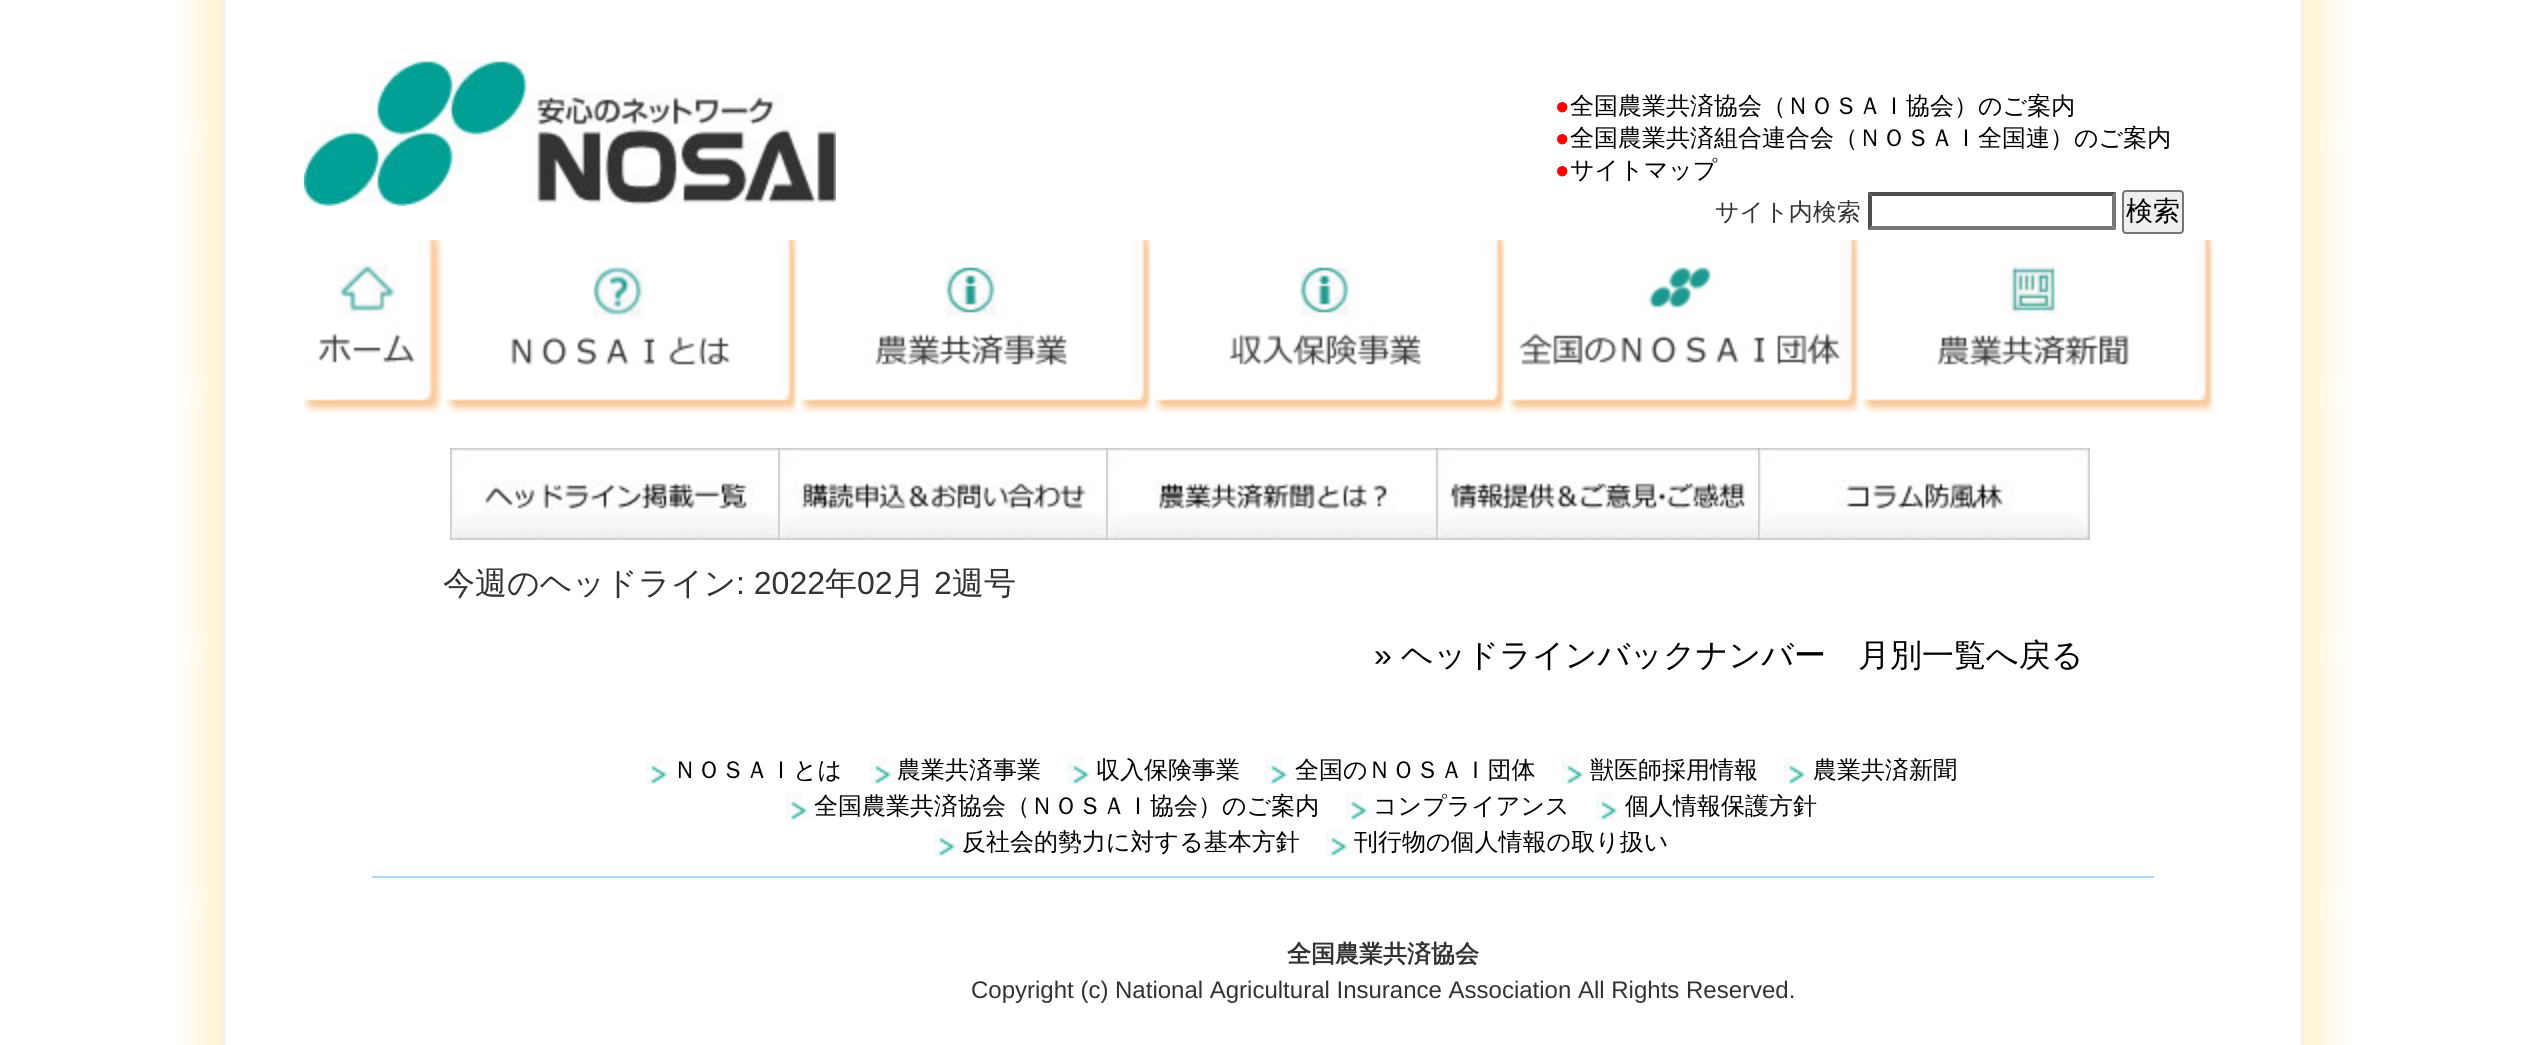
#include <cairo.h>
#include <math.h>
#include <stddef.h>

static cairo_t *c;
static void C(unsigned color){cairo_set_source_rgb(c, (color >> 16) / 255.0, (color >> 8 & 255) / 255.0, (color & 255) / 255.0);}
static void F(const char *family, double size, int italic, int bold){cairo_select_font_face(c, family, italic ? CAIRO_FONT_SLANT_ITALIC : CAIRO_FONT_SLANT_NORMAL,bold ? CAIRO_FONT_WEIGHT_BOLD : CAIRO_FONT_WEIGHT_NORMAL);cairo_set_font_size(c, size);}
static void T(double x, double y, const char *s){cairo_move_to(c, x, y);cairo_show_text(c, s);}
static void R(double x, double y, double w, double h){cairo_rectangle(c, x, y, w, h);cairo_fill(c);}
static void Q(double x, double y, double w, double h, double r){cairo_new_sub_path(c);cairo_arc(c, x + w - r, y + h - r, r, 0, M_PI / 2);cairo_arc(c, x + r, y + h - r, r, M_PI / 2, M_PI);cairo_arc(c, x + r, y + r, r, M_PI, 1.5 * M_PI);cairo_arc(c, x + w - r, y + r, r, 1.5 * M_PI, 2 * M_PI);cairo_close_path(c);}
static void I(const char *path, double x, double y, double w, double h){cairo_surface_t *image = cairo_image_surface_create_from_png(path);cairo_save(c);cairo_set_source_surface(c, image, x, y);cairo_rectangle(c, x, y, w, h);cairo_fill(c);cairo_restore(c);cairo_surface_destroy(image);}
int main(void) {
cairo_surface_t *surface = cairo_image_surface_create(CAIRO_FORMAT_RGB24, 2525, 1045);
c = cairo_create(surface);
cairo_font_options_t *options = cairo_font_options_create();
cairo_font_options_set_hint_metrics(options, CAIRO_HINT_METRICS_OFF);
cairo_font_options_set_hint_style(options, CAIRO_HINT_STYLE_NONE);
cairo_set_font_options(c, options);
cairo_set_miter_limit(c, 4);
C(0xffffff);
cairo_paint(c);
I("1.png",176,0,2174,1045);
I("2.png",304,60,532,146);
F("Liberation Sans",24,0,0);
C(0xff0000);
T(1555,114,"●");
F("WenQuanYi Zen Hei Medium",24,0,0);
C(0x000000);
T(1570,114,"全国農業共済協会（ＮＯＳＡＩ協会）のご案内");
F("Liberation Sans",24,0,0);
C(0xff0000);
T(1555,146,"●");
F("WenQuanYi Zen Hei Medium",24,0,0);
C(0x000000);
T(1570,146,"全国農業共済組合連合会（ＮＯＳＡＩ全国連）のご案内");
F("Liberation Sans",24,0,0);
C(0xff0000);
T(1555,178,"●");
F("WenQuanYi Zen Hei Medium",24,0,0);
C(0x000000);
T(1570,178,"サイトマップ");
C(0x333333);
T(1715,220,"サイト内検索");
C(0x4f4f4f);
cairo_new_path(c);
cairo_move_to(c,1868,192);
cairo_line_to(c,2116,192);
cairo_line_to(c,2112,196);
cairo_line_to(c,1872,196);
cairo_close_path(c);
cairo_fill(c);
C(0x767676);
cairo_new_path(c);
cairo_move_to(c,2116,192);
cairo_line_to(c,2116,230);
cairo_line_to(c,2112,226);
cairo_line_to(c,2112,196);
cairo_close_path(c);
cairo_fill(c);
cairo_new_path(c);
cairo_move_to(c,2116,230);
cairo_line_to(c,1868,230);
cairo_line_to(c,1872,226);
cairo_line_to(c,2112,226);
cairo_close_path(c);
cairo_fill(c);
C(0x4f4f4f);
cairo_new_path(c);
cairo_move_to(c,1868,230);
cairo_line_to(c,1868,192);
cairo_line_to(c,1872,196);
cairo_line_to(c,1872,226);
cairo_close_path(c);
cairo_fill(c);
C(0xefefef);
Q(2123,191,60,42,3);
cairo_fill_preserve(c);
C(0x767676);
cairo_stroke(c);
F("WenQuanYi Zen Hei Medium",27,0,0);
C(0x000000);
T(2126,220,"検索");
I("3.png",304,240,139,174);
I("4.png",446,240,353,174);
I("5.png",800,240,353,174);
I("6.png",1154,240,353,174);
I("7.png",1508,240,353,174);
I("8.png",1862,240,353,174);
I("9.png",450,448,328,92);
I("10.png",778,448,328,92);
I("11.png",1106,448,330,92);
I("12.png",1436,448,322,92);
I("13.png",1758,448,332,92);
F("WenQuanYi Zen Hei Medium",32,0,0);
C(0x333333);
T(443,594,"今週のヘッドライン");
F("Liberation Sans",32,0,0);
T(736,594,": 2022");
F("WenQuanYi Zen Hei Medium",32,0,0);
T(825,594,"年");
F("Liberation Sans",32,0,0);
T(857,594,"02");
F("WenQuanYi Zen Hei Medium",32,0,0);
T(893,594,"月");
F("Liberation Sans",32,0,0);
T(934,594,"2");
F("WenQuanYi Zen Hei Medium",32,0,0);
T(952,594,"週号");
F("Liberation Sans",32,0,0);
C(0x000000);
T(1374,666,"»");
F("WenQuanYi Zen Hei Medium",32,0,0);
T(1401,666,"ヘッドラインバックナンバー　月別一覧へ戻る");
C(0xb0d8ff);
R(372,876,1782,2);
I("14.png",646,756,32,28);
F("WenQuanYi Zen Hei Medium",24,0,0);
C(0x000000);
T(673,778,"ＮＯＳＡＩとは");
I("14.png",870,756,32,28);
T(897,778,"農業共済事業");
I("14.png",1068,756,32,28);
T(1096,778,"収入保険事業");
I("14.png",1266,756,32,28);
T(1295,778,"全国のＮＯＳＡＩ団体");
I("14.png",1562,756,32,28);
T(1590,778,"獣医師採用情報");
I("14.png",1784,756,32,28);
T(1813,778,"農業共済新聞");
I("14.png",786,792,32,28);
T(814,814,"全国農業共済協会（ＮＯＳＡＩ協会）のご案内");
I("14.png",1346,792,32,28);
T(1373,814,"コンプライアンス");
I("14.png",1596,792,32,28);
T(1625,814,"個人情報保護方針");
I("14.png",934,828,32,28);
T(962,850,"反社会的勢力に対する基本方針");
I("14.png",1326,828,32,28);
T(1354,850,"刊行物の個人情報の取り扱い");
F("WenQuanYi Zen Hei",24,0,1);
C(0x333333);
T(1287,962,"全国農業共済協会");
F("Liberation Sans",24,0,0);
T(971,998,"Copyright (c) National Agricultural Insurance Association All Rights Reserved.");
cairo_surface_write_to_png(surface, "o.png");
cairo_font_options_destroy(options);
cairo_destroy(c);
cairo_surface_destroy(surface);
return 0;
}
